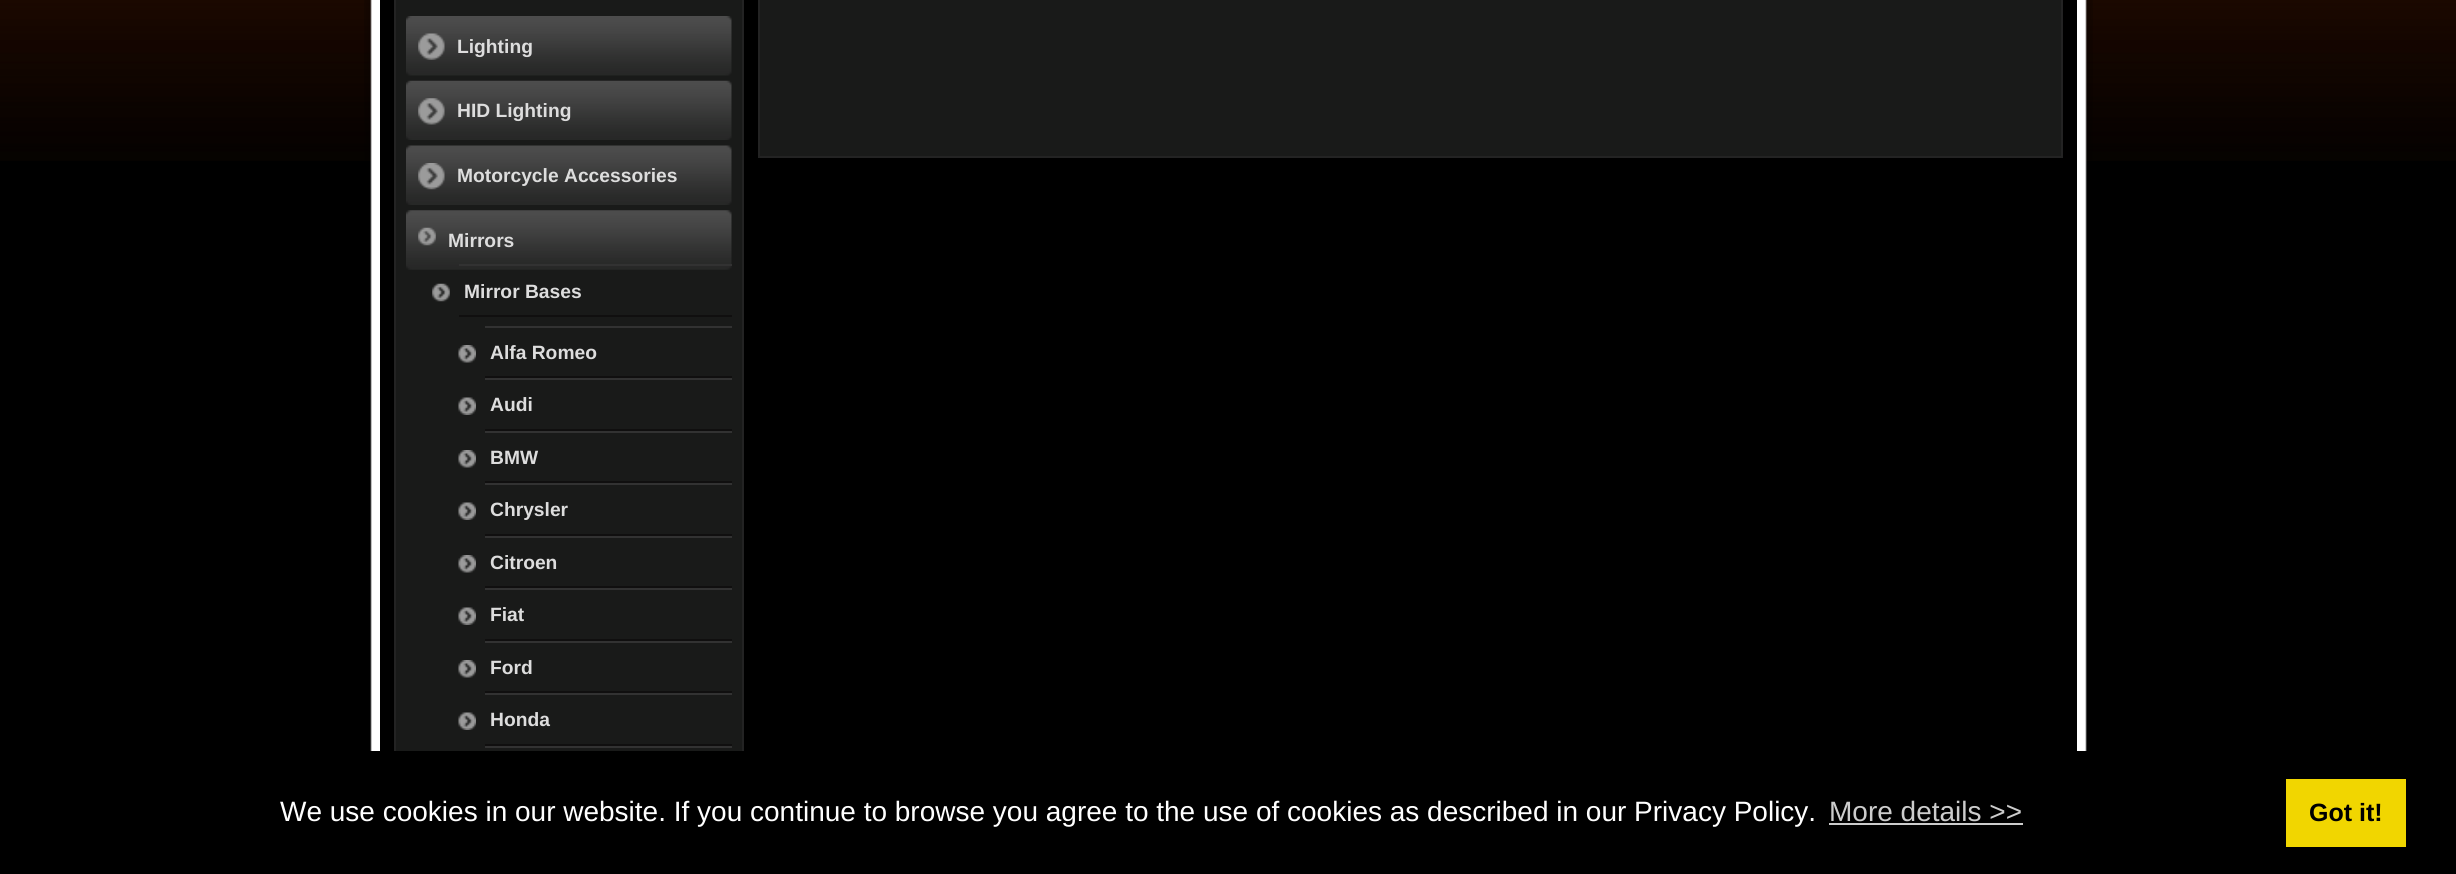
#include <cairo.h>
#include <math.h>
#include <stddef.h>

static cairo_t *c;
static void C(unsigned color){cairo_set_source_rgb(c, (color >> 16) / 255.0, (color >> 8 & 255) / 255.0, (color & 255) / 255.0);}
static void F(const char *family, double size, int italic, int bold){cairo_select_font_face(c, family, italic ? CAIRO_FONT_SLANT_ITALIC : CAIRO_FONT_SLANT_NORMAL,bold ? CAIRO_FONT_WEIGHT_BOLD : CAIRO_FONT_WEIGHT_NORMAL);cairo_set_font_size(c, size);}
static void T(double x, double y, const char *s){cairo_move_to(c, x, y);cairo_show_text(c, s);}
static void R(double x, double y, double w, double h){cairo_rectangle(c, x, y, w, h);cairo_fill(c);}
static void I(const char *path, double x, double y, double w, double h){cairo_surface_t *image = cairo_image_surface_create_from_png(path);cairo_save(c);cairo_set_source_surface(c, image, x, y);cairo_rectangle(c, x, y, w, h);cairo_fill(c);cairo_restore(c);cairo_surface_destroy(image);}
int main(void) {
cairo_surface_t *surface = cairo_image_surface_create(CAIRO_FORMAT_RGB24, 2456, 874);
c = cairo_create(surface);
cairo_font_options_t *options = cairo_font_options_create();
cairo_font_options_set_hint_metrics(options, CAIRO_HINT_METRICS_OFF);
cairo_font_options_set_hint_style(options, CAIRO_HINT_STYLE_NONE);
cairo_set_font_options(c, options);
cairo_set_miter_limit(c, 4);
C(0x000000);
cairo_paint(c);
I("1.png",0,0,2456,161);
I("2.png",364,0,1729,751);
C(0x000000);
R(380,0,1697,751);
C(0x191a19);
R(396,0,346,751);
C(0x232323);
R(742,0,2,751);
R(394,0,2,751);
I("3.png",406,16,326,60);
I("4.png",418,33,27,27);
F("Liberation Sans",19.25,0,1);
C(0xdddddd);
T(457,53,"Lighting");
I("5.png",406,80,326,60);
I("6.png",418,98,27,27);
T(457,117,"HID Lighting");
I("7.png",406,145,326,60);
I("8.png",418,163,27,27);
T(457,182,"Motorcycle Accessories");
I("9.png",406,210,326,60);
I("10.png",418,227,18,19);
T(448,247,"Mirrors");
I("11.png",432,283,18,19);
C(0x323232);
R(459,264,273,2);
C(0x100f0f);
R(459,315,273,2);
C(0xdddddd);
T(464,298,"Mirror Bases");
I("12.png",458,345,18,18);
C(0x323232);
R(485,326,247,2);
C(0x100f0f);
R(485,376,247,2);
C(0xdddddd);
T(490,359,"Alfa Romeo");
I("13.png",458,397,18,18);
C(0x323232);
R(485,378,247,2);
C(0x100f0f);
R(485,429,247,2);
C(0xdddddd);
T(490,411,"Audi");
I("12.png",458,450,18,18);
C(0x323232);
R(485,431,247,2);
C(0x100f0f);
R(485,481,247,2);
C(0xdddddd);
T(490,464,"BMW");
I("13.png",458,502,18,18);
C(0x323232);
R(485,483,247,2);
C(0x100f0f);
R(485,534,247,2);
C(0xdddddd);
T(490,516,"Chrysler");
I("12.png",458,555,18,18);
C(0x323232);
R(485,536,247,2);
C(0x100f0f);
R(485,586,247,2);
C(0xdddddd);
T(490,569,"Citroen");
I("13.png",458,607,18,18);
C(0x323232);
R(485,588,247,2);
C(0x100f0f);
R(485,639,247,2);
C(0xdddddd);
T(490,621,"Fiat");
I("12.png",458,660,18,18);
C(0x323232);
R(485,641,247,2);
C(0x100f0f);
R(485,691,247,2);
C(0xdddddd);
T(490,674,"Ford");
I("13.png",458,712,18,18);
C(0x323232);
R(485,693,247,2);
C(0x100f0f);
R(485,744,247,2);
C(0xdddddd);
T(490,726,"Honda");
C(0x323232);
R(485,746,247,2);
C(0x191a19);
cairo_rectangle(c,759,-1,1303,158);
cairo_fill_preserve(c);
C(0x232323);
cairo_stroke(c);
F("Liberation Sans",28,0,0);
C(0xffffff);
T(280,821,"We use cookies in our website. If you continue to browse you agree to the use of cookies as described in our Privacy Policy.");
C(0xcccccc);
T(1829,821,"More details >>");
R(1829,823,194,2);
C(0xf1d600);
R(2286,779,120,68);
F("Liberation Sans",25,0,1);
C(0x000000);
T(2309,821,"Got it!");
cairo_surface_write_to_png(surface, "o.png");
cairo_font_options_destroy(options);
cairo_destroy(c);
cairo_surface_destroy(surface);
return 0;
}
